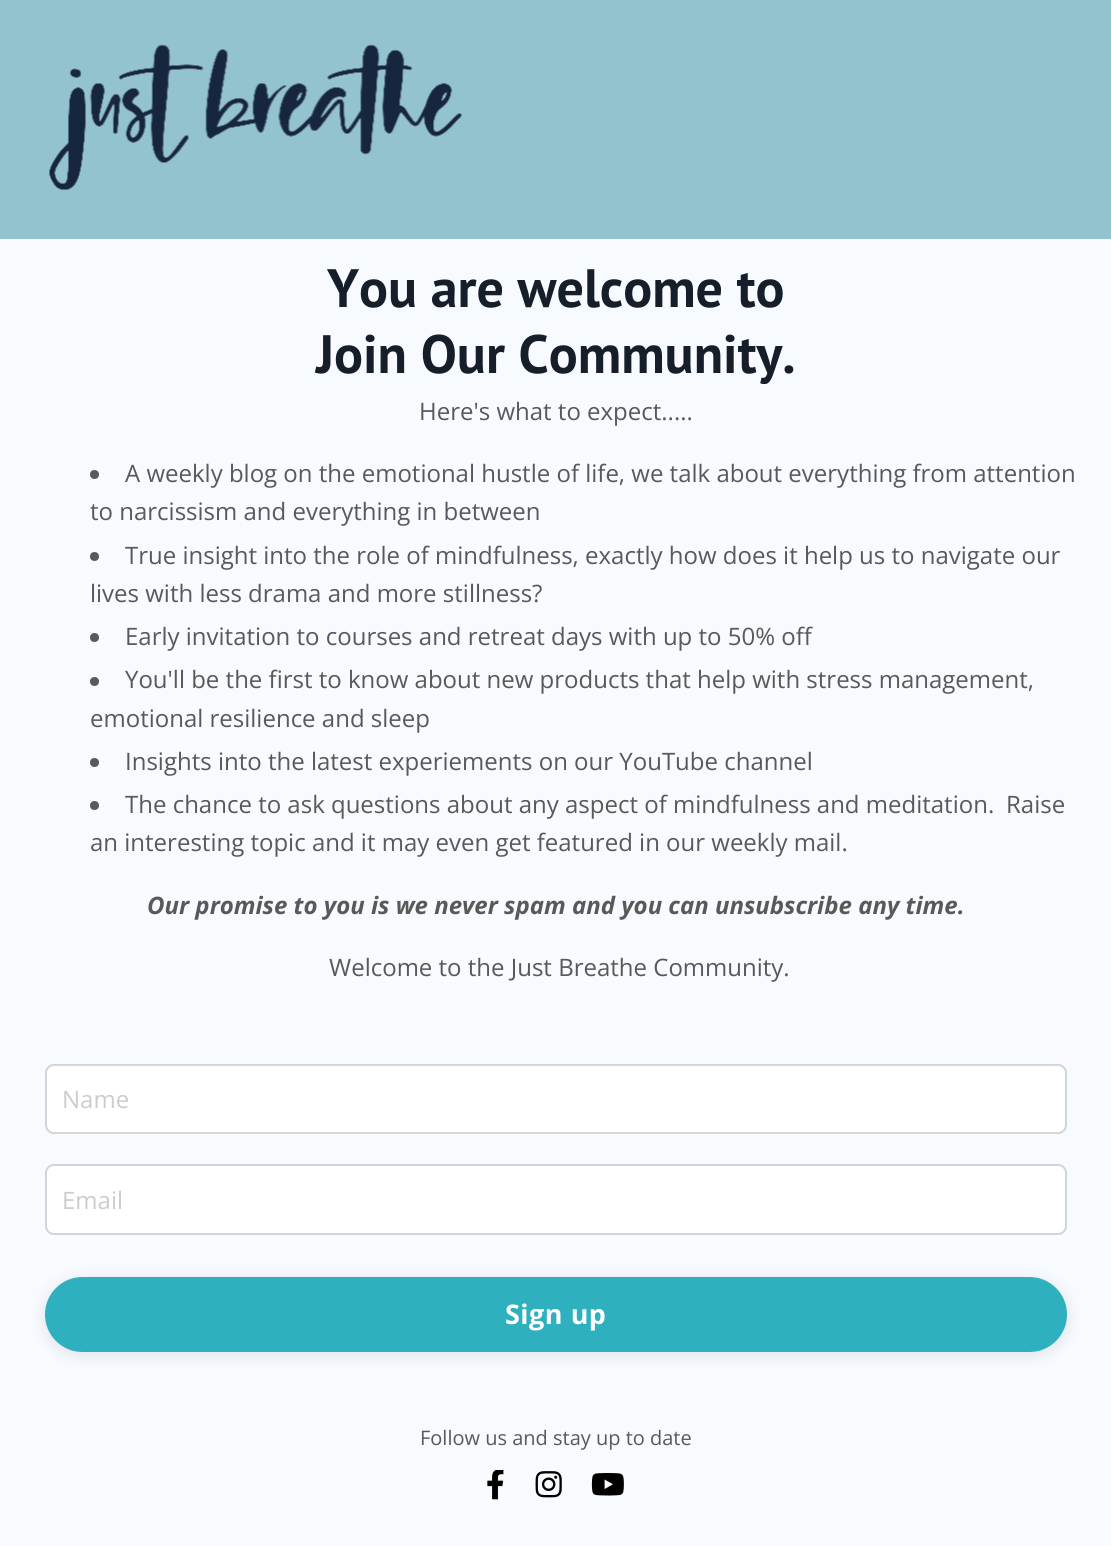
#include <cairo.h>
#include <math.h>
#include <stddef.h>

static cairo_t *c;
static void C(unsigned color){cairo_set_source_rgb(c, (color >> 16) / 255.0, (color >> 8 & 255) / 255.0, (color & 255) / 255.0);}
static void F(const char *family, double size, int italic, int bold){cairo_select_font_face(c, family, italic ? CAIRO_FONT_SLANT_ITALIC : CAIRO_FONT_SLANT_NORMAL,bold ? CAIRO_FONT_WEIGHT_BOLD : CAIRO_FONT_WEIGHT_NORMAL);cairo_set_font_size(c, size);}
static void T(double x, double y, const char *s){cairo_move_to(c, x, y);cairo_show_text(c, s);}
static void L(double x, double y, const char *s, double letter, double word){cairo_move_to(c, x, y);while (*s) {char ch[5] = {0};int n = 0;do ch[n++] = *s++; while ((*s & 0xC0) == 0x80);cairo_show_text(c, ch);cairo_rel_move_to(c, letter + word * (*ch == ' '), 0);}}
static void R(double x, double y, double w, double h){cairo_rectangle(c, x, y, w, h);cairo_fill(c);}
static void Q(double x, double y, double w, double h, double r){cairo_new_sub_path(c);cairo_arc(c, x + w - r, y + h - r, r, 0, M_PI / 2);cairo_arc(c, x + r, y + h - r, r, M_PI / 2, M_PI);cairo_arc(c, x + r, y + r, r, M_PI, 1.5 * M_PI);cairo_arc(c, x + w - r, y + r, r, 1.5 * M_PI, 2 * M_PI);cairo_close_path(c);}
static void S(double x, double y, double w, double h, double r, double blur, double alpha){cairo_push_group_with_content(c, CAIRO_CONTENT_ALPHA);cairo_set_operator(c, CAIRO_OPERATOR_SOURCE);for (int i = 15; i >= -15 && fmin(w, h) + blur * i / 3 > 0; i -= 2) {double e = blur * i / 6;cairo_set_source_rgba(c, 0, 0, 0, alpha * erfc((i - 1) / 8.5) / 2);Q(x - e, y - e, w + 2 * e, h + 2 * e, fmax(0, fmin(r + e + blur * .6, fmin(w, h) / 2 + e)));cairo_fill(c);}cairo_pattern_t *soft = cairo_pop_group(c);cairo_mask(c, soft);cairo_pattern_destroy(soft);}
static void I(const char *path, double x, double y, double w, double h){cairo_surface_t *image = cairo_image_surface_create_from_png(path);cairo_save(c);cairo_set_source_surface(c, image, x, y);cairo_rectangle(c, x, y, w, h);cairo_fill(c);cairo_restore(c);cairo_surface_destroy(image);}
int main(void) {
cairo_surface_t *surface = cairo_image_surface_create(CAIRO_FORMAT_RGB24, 1111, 1546);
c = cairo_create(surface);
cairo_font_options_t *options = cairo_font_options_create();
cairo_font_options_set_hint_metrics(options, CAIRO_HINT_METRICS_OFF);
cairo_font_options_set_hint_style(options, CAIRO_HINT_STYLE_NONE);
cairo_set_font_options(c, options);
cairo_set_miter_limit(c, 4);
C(0xf7fafe);
cairo_paint(c);
C(0x92c3ce);
R(0,0,1111,239);
I("1.png",49,44,414,147);
F("PT Sans",54,0,1);
C(0x161e2a);
T(327,307,"You are welcome to");
T(316,373,"Join Our Community.");
F("Open Sans",24,0,0);
C(0x595959);
T(419,420,"Here's what to expect.....");
cairo_new_path(c);
cairo_arc(c,94.5,474.5,4.5,0,2 * M_PI);
cairo_fill(c);
T(125,482,"A weekly blog on the emotional hustle of life, we talk about everything from attention");
T(90,520,"to narcissism and everything in between");
cairo_new_path(c);
cairo_arc(c,94.5,556.5,4.5,0,2 * M_PI);
cairo_fill(c);
T(125,564,"True insight into the role of mindfulness, exactly how does it help us to navigate our");
T(90,602,"lives with less drama and more stillness?");
cairo_new_path(c);
cairo_arc(c,94.5,637.5,4.5,0,2 * M_PI);
cairo_fill(c);
T(125,645,"Early invitation to courses and retreat days with up to 50% off");
cairo_new_path(c);
cairo_arc(c,94.5,681.5,4.5,0,2 * M_PI);
cairo_fill(c);
T(125,688,"You'll be the first to know about new products that help with stress management,");
T(90,727,"emotional resilience and sleep");
cairo_new_path(c);
cairo_arc(c,94.5,762.5,4.5,0,2 * M_PI);
cairo_fill(c);
T(125,770,"Insights into the latest experiements on our YouTube channel");
cairo_new_path(c);
cairo_arc(c,94.5,805.5,4.5,0,2 * M_PI);
cairo_fill(c);
T(125,813,"The chance to ask questions about any aspect of mindfulness and meditation.");
T(1006,813,"Raise");
T(90,851,"an interesting topic and it may even get featured in our weekly mail.");
F("Open Sans",24,1,1);
T(147,914,"Our promise to you is we never spam and you can unsubscribe any time.");
F("Open Sans",24,0,0);
T(329,976,"Welcome to the Just Breathe Community.");
C(0xffffff);
Q(47,1065,1018,68,8);
cairo_fill(c);
Q(46,1065,1020,68,8);
cairo_set_source_rgba(c,0,0,0,0.15);
cairo_stroke(c);
C(0xcccccc);
T(62,1108,"Name");
C(0xffffff);
Q(46,1165,1020,69,8);
cairo_fill_preserve(c);
C(0xd2d5d8);
cairo_stroke(c);
C(0xcccccc);
T(62,1209,"Email");
C(0x000000);
S(45,1280,1022,75,37.5,7.5,.1);
C(0x2fb0bf);
Q(46.5,1278.5,1019,72,36);
cairo_fill_preserve(c);
cairo_set_line_width(c,3);
cairo_stroke(c);
F("Open Sans",27,0,1);
C(0xffffff);
L(505,1324,"Sign up",.5,0);
F("Open Sans",20,0,0);
C(0x595959);
T(420,1445,"Follow us and stay up to date");
I("2.png",487,1470,17,30);
I("3.png",535,1471,27,27);
I("4.png",591,1473,33,23);
cairo_surface_write_to_png(surface, "o.png");
cairo_font_options_destroy(options);
cairo_destroy(c);
cairo_surface_destroy(surface);
return 0;
}
